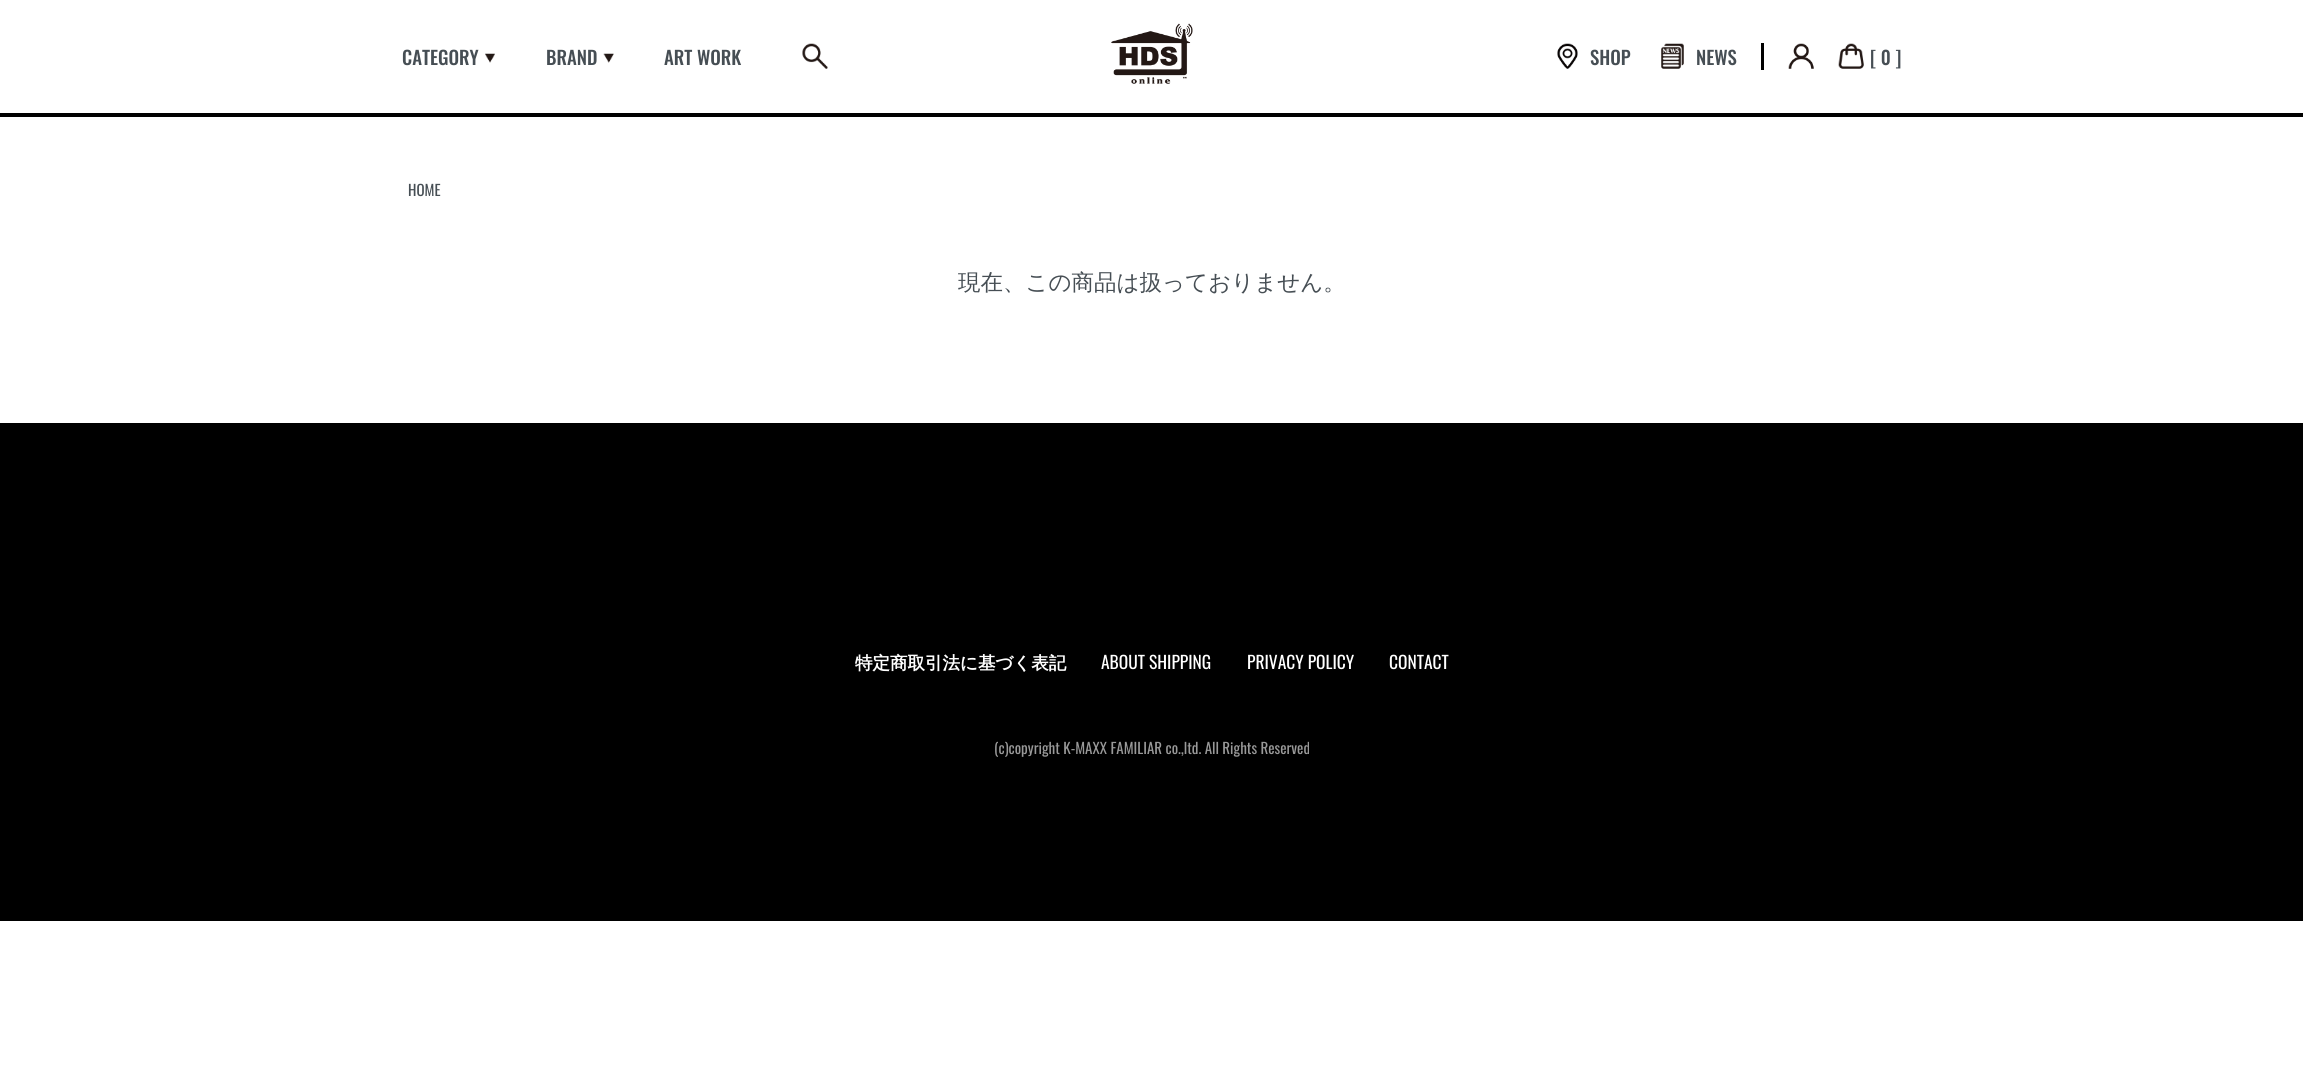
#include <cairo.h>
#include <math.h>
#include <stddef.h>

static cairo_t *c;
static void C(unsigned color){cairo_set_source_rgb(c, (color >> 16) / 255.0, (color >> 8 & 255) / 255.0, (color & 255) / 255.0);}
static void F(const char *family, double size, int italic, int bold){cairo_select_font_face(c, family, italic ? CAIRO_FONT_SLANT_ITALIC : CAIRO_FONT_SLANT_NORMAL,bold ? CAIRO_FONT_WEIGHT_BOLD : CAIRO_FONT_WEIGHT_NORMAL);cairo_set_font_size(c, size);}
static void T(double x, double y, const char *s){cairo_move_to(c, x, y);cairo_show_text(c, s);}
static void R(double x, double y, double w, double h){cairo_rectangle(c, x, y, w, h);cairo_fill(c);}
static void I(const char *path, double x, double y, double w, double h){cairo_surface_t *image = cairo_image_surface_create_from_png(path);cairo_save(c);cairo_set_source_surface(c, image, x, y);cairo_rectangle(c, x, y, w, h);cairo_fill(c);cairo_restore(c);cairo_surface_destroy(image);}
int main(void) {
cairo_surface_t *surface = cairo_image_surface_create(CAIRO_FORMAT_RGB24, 2303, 1080);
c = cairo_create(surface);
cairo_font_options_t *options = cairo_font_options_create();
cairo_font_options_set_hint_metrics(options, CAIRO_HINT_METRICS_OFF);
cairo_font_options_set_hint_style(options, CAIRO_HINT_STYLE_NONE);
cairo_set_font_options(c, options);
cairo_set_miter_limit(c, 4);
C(0xffffff);
cairo_paint(c);
C(0x000000);
R(0,113,2303,4);
F("Oswald Medium",18.75,0,0);
C(0x464e54);
T(402,65,"CATEGORY");
I("1.png",485,53,10,10);
T(546,65,"BRAND");
I("2.png",603,53,11,10);
T(664,65,"ART WORK");
I("3.png",802,43,26,26);
I("4.png",1111,23,82,61);
I("5.png",1557,43,21,26);
T(1590,65,"SHOP");
C(0x000000);
R(1761,43,3,27);
I("6.png",1661,43,23,26);
C(0x464e54);
T(1696,65,"NEWS");
I("7.png",1788,43,26,26);
I("8.png",1838,43,26,26);
T(1870,65,"[ 0 ]");
F("Oswald",15,0,0);
T(408,196,"HOME");
F("WenQuanYi Zen Hei Medium",22.5,0,0);
T(958,290,"現在、この商品は扱っておりません。");
C(0x000000);
R(0,423,2303,498);
F("WenQuanYi Zen Hei",17.5,0,1);
C(0xffffff);
T(855,669,"特定商取引法に基づく表記");
F("Oswald",17.5,0,0);
T(1101,669,"ABOUT SHIPPING");
T(1247,669,"PRIVACY POLICY");
T(1389,669,"CONTACT");
F("Oswald",15,0,0);
C(0x999999);
T(994,754,"(c)copyright K-MAXX FAMILIAR co.,ltd. All Rights Reserved");
cairo_surface_write_to_png(surface, "o.png");
cairo_font_options_destroy(options);
cairo_destroy(c);
cairo_surface_destroy(surface);
return 0;
}
